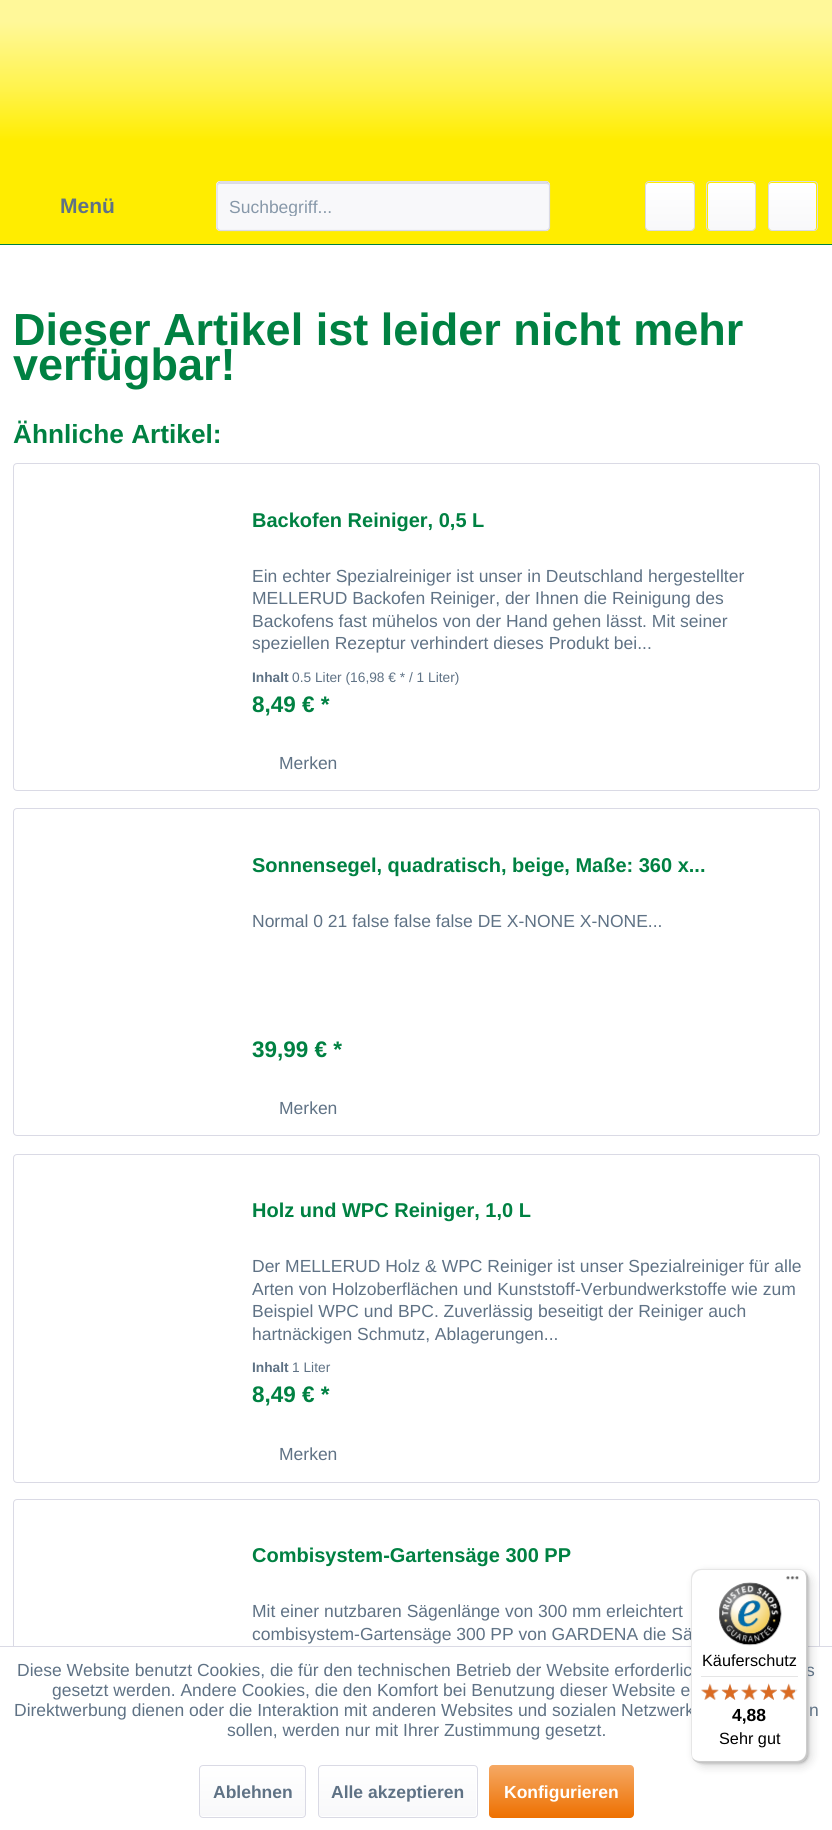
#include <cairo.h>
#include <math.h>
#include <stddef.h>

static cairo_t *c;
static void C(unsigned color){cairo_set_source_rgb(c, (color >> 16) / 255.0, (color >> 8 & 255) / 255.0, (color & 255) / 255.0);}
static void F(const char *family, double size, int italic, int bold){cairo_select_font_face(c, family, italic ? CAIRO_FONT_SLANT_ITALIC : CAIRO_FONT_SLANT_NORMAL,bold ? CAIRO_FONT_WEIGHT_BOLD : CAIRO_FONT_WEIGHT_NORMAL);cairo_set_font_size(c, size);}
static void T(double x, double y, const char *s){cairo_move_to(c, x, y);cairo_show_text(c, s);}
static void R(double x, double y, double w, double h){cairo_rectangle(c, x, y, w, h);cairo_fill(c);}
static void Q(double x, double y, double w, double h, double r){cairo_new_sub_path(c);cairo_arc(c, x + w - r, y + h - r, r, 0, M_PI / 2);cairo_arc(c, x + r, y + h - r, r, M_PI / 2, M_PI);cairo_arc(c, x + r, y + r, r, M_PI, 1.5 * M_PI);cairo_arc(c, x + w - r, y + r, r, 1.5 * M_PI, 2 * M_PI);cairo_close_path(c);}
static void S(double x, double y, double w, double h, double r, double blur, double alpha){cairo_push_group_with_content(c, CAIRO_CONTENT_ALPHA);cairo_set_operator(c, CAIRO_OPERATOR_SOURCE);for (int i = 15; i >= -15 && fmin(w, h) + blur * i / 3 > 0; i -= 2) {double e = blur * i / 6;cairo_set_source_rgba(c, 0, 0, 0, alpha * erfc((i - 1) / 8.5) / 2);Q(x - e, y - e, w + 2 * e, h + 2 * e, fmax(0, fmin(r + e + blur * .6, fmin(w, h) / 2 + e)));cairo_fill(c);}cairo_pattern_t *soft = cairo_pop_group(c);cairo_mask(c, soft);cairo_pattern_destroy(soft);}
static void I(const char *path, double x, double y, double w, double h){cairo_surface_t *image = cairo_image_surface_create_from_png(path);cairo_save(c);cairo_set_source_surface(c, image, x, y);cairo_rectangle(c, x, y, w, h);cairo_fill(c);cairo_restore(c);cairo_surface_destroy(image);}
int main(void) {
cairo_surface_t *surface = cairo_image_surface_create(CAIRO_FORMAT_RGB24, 832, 1830);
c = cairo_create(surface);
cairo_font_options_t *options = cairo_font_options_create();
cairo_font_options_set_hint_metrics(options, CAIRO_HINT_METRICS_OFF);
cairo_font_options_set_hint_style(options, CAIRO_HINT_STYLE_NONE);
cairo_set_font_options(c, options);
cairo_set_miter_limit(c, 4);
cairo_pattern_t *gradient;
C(0xffffff);
cairo_paint(c);
gradient = cairo_pattern_create_linear(416,244,416,0);
cairo_pattern_add_color_stop_rgba(gradient,.42,1,0.929,0,1);
cairo_pattern_add_color_stop_rgba(gradient,.64,1,0.953,0.302,1);
cairo_pattern_add_color_stop_rgba(gradient,.91,1,0.973,0.6,1);
cairo_set_source(c,gradient);
cairo_pattern_destroy(gradient);
R(0,0,832,244);
C(0x008142);
R(0,244,832,1);
F("Liberation Sans",21,0,1);
C(0x5f7285);
T(60,213,"Menü");
C(0xf8f8fa);
Q(216,181,334,50,4);
cairo_fill(c);
C(0xdadae5);
cairo_new_path(c);
cairo_move_to(c,220,184);
cairo_line_to(c,546,184);
cairo_curve_to(c,548,184,549,185,549,186);
cairo_curve_to(c,549,184,548,183,546,183);
cairo_line_to(c,220,183);
cairo_curve_to(c,219,183,218,184,218,186);
cairo_curve_to(c,218,185,219,184,220,184);
cairo_close_path(c);
cairo_fill(c);
cairo_new_path(c);
cairo_move_to(c,218,183);
cairo_line_to(c,220,182);
cairo_line_to(c,546.5,182);
cairo_line_to(c,548.5,183);
C(0xcbcbdb);
cairo_set_line_width(c,1.2);
cairo_stroke(c);
cairo_new_path(c);
cairo_move_to(c,548.5,183);
cairo_line_to(c,549.5,185);
cairo_line_to(c,549.5,227.5);
cairo_line_to(c,548.5,229.5);
cairo_line_to(c,546,230.5);
cairo_line_to(c,220,230.5);
cairo_line_to(c,218,229.5);
cairo_line_to(c,217,227.5);
cairo_line_to(c,217,185);
cairo_line_to(c,218,183);
C(0xdadae5);
cairo_stroke(c);
cairo_save(c);
cairo_rectangle(c,229,196,267,20);
cairo_clip(c);
F("Liberation Sans",17.5,0,0);
C(0x8798a9);
T(229,213,"Suchbegriff...");
cairo_restore(c);
gradient = cairo_pattern_create_linear(670,183,670,230);
cairo_pattern_add_color_stop_rgba(gradient,0,1,1,1,1);
cairo_pattern_add_color_stop_rgba(gradient,1,0.973,0.973,0.98,1);
cairo_set_source(c,gradient);
cairo_pattern_destroy(gradient);
Q(646,183,48,47,2.5);
cairo_fill(c);
Q(645.5,181.5,49,49,3.5);
C(0xdadae5);
cairo_set_line_width(c,1);
cairo_stroke(c);
gradient = cairo_pattern_create_linear(731,183,731,230);
cairo_pattern_add_color_stop_rgba(gradient,0,1,1,1,1);
cairo_pattern_add_color_stop_rgba(gradient,1,0.973,0.973,0.98,1);
cairo_set_source(c,gradient);
cairo_pattern_destroy(gradient);
Q(708,183,47,47,2.5);
cairo_fill(c);
Q(706.5,181.5,49,49,3.5);
C(0xdadae5);
cairo_stroke(c);
gradient = cairo_pattern_create_linear(793,183,793,230);
cairo_pattern_add_color_stop_rgba(gradient,0,1,1,1,1);
cairo_pattern_add_color_stop_rgba(gradient,1,0.973,0.973,0.98,1);
cairo_set_source(c,gradient);
cairo_pattern_destroy(gradient);
Q(769,183,47,47,2.5);
cairo_fill(c);
Q(768.5,181.5,49,49,3.5);
C(0xdadae5);
cairo_stroke(c);
F("Liberation Sans",45,0,1);
C(0x008142);
T(13,345,"Dieser Artikel ist leider nicht mehr");
T(13,380,"verfügbar!");
F("Liberation Sans",26.25,0,1);
T(13,443,"Ähnliche Artikel:");
Q(13.5,463.5,806,327,3.5);
C(0xdadae5);
cairo_stroke(c);
F("Liberation Sans",20,0,1);
C(0x008142);
T(252,527,"Backofen Reiniger, 0,5 L");
F("Liberation Sans",17.5,0,0);
C(0x5f7285);
T(252,582,"Ein echter Spezialreiniger ist unser in Deutschland hergestellter");
T(252,604,"MELLERUD Backofen Reiniger, der Ihnen die Reinigung des");
T(252,627,"Backofens fast mühelos von der Hand gehen lässt. Mit seiner");
T(252,649,"speziellen Rezeptur verhindert dieses Produkt bei...");
F("Liberation Sans",13.75,0,1);
T(252,682,"Inhalt");
F("Liberation Sans",13.75,0,0);
T(292,682,"0.5 Liter (16,98 € * / 1 Liter)");
F("Liberation Sans",22.5,0,1);
C(0x008142);
T(252,712,"8,49 € *");
F("Liberation Sans",17.5,0,0);
C(0x5f7285);
T(279,769,"Merken");
Q(13.5,808.5,806,327,3.5);
C(0xdadae5);
cairo_stroke(c);
F("Liberation Sans",20,0,1);
C(0x008142);
T(252,872,"Sonnensegel, quadratisch, beige, Maße: 360 x...");
F("Liberation Sans",17.5,0,0);
C(0x5f7285);
T(252,927,"Normal 0 21 false false false DE X-NONE X-NONE...");
F("Liberation Sans",22.5,0,1);
C(0x008142);
T(252,1057,"39,99 € *");
F("Liberation Sans",17.5,0,0);
C(0x5f7285);
T(279,1114,"Merken");
Q(13.5,1154.5,806,328,3.5);
C(0xdadae5);
cairo_stroke(c);
F("Liberation Sans",20,0,1);
C(0x008142);
T(252,1217,"Holz und WPC Reiniger, 1,0 L");
F("Liberation Sans",17.5,0,0);
C(0x5f7285);
T(252,1272,"Der MELLERUD Holz & WPC Reiniger ist unser Spezialreiniger für alle");
T(252,1295,"Arten von Holzoberflächen und Kunststoff-Verbundwerkstoffe wie zum");
T(252,1317,"Beispiel WPC und BPC. Zuverlässig beseitigt der Reiniger auch");
T(252,1340,"hartnäckigen Schmutz, Ablagerungen...");
F("Liberation Sans",13.75,0,1);
T(252,1372,"Inhalt");
F("Liberation Sans",13.75,0,0);
T(292,1372,"1 Liter");
F("Liberation Sans",22.5,0,1);
C(0x008142);
T(252,1402,"8,49 € *");
F("Liberation Sans",17.5,0,0);
C(0x5f7285);
T(279,1460,"Merken");
Q(13.5,1499.5,806,328,3.5);
C(0xdadae5);
cairo_stroke(c);
F("Liberation Sans",20,0,1);
C(0x008142);
T(252,1562,"Combisystem-Gartensäge 300 PP");
F("Liberation Sans",17.5,0,0);
C(0x5f7285);
T(252,1617,"Mit einer nutzbaren Sägenlänge von 300 mm erleichtert");
T(252,1640,"combisystem-Gartensäge 300 PP von GARDENA die Sä");
C(0xffffff);
R(13,1647,807,181);
C(0xdadae5);
R(0,1646,832,1);
C(0x000000);
S(695,1573,116,193,10,5,.15);
S(693,1570,116,194,10,1,.15);
C(0x5f7285);
T(17,1676,"Diese Website benutzt Cookies, die für den technischen Betrieb der Website erforderlic");
T(806,1676,"s");
T(14,1716,"Direktwerbung dienen oder die Interaktion mit anderen Websites und sozialen Netzwerk");
C(0xffffff);
Q(691,1569,117,194,10);
cairo_fill(c);
cairo_set_source_rgba(c,0,0,0,0.1);
cairo_new_path(c);
cairo_move_to(c,702,1570);
cairo_line_to(c,799,1570);
cairo_curve_to(c,801,1570,804,1571,806,1573);
cairo_curve_to(c,804,1570,801,1569,798,1569);
cairo_line_to(c,701,1569);
cairo_curve_to(c,695,1569,691,1573,691,1579);
cairo_line_to(c,691,1753);
cairo_curve_to(c,691,1757,693,1760,696,1762);
cairo_curve_to(c,694,1760,692,1757,692,1754);
cairo_line_to(c,692,1580);
cairo_curve_to(c,692,1574,697,1570,702,1570);
cairo_close_path(c);
cairo_fill(c);
cairo_set_source_rgba(c,0,0,0,0.2);
cairo_new_path(c);
cairo_move_to(c,692,1757);
cairo_curve_to(c,694,1761,697,1763,701,1763);
cairo_line_to(c,798,1763);
cairo_curve_to(c,804,1763,808,1759,808,1753);
cairo_line_to(c,808,1579);
cairo_curve_to(c,808,1575,806,1572,802,1570);
cairo_curve_to(c,805,1572,806,1575,806,1578);
cairo_line_to(c,806,1751);
cairo_curve_to(c,806,1757,802,1761,796,1761);
cairo_line_to(c,700,1761);
cairo_curve_to(c,697,1761,694,1760,692,1757);
cairo_close_path(c);
cairo_fill(c);
cairo_set_source_rgba(c,0.196,0.196,0.196,0.2);
cairo_new_path(c);
cairo_move_to(c,692,1758);
cairo_curve_to(c,694,1761,697,1763,701,1763);
cairo_line_to(c,798,1763);
cairo_curve_to(c,804,1763,808,1759,808,1753);
cairo_line_to(c,808,1579);
cairo_curve_to(c,808,1576,807,1573,805,1571);
cairo_curve_to(c,806,1573,807,1575,807,1578);
cairo_line_to(c,807,1752);
cairo_curve_to(c,807,1757,802,1762,797,1762);
cairo_line_to(c,700,1762);
cairo_curve_to(c,697,1762,694,1760,692,1758);
cairo_close_path(c);
cairo_fill(c);
cairo_set_source_rgba(c,1,1,1,0.3);
cairo_new_path(c);
cairo_move_to(c,691,1752);
cairo_line_to(c,691,1753);
cairo_curve_to(c,691,1759,695,1763,701,1763);
cairo_line_to(c,798,1763);
cairo_curve_to(c,804,1763,808,1759,808,1753);
cairo_line_to(c,808,1579);
cairo_curve_to(c,808,1575,806,1572,803,1570);
cairo_curve_to(c,805,1572,807,1575,807,1578);
cairo_line_to(c,807,1752);
cairo_curve_to(c,807,1757,802,1762,797,1762);
cairo_line_to(c,701,1762);
cairo_curve_to(c,695,1762,691,1757,691,1752);
cairo_close_path(c);
cairo_fill(c);
I("1.png",786,1576,13,4);
I("2.png",719,1582,63,64);
F("Liberation Sans",16.25,0,0);
C(0x000000);
T(702,1666,"Käuferschutz");
C(0xe5e5e5);
R(701,1676,97,1);
I("3.png",701,1684,18,16);
I("4.png",722,1684,16,16);
I("5.png",741,1684,17,16);
I("6.png",760,1683,17,17);
I("7.png",780,1684,18,16);
I("8.png",701,1683,18,17);
I("9.png",721,1683,18,17);
I("10.png",741,1683,17,17);
I("11.png",760,1683,17,17);
I("12.png",780,1683,15,17);
F("Liberation Sans",17.5,0,1);
C(0x000000);
T(732,1721,"4,88");
F("Liberation Sans",16.25,0,0);
T(719,1744,"Sehr gut");
F("Liberation Sans",17.5,0,0);
C(0x5f7285);
T(52,1696,"gesetzt werden. Andere Cookies, die den Komfort bei Benutzung dieser Website e");
T(809,1716,"n");
T(227,1736,"sollen, werden nur mit Ihrer Zustimmung gesetzt.");
gradient = cairo_pattern_create_linear(253,1766,253,1816);
cairo_pattern_add_color_stop_rgba(gradient,0,1,1,1,1);
cairo_pattern_add_color_stop_rgba(gradient,1,0.973,0.973,0.98,1);
cairo_set_source(c,gradient);
cairo_pattern_destroy(gradient);
Q(200,1766,105,50,2.5);
cairo_fill(c);
Q(199.5,1765.5,106,52,3.5);
C(0xdadae5);
cairo_stroke(c);
F("Liberation Sans",17.5,0,1);
C(0x5f7285);
T(213,1798,"Ablehnen");
gradient = cairo_pattern_create_linear(398,1766,398,1816);
cairo_pattern_add_color_stop_rgba(gradient,0,1,1,1,1);
cairo_pattern_add_color_stop_rgba(gradient,1,0.973,0.973,0.98,1);
cairo_set_source(c,gradient);
cairo_pattern_destroy(gradient);
Q(319,1766,157,50,2.5);
cairo_fill(c);
Q(318.5,1765.5,159,52,3.5);
C(0xdadae5);
cairo_stroke(c);
C(0x5f7285);
T(331,1798,"Alle akzeptieren");
gradient = cairo_pattern_create_linear(561,1765,561,1818);
cairo_pattern_add_color_stop_rgba(gradient,0,0.961,0.663,0.396,1);
cairo_pattern_add_color_stop_rgba(gradient,1,0.933,0.439,0,1);
cairo_set_source(c,gradient);
cairo_pattern_destroy(gradient);
Q(489,1765,145,53,4);
cairo_fill(c);
C(0xffffff);
T(504,1798,"Konfigurieren");
cairo_surface_write_to_png(surface, "o.png");
cairo_font_options_destroy(options);
cairo_destroy(c);
cairo_surface_destroy(surface);
return 0;
}
